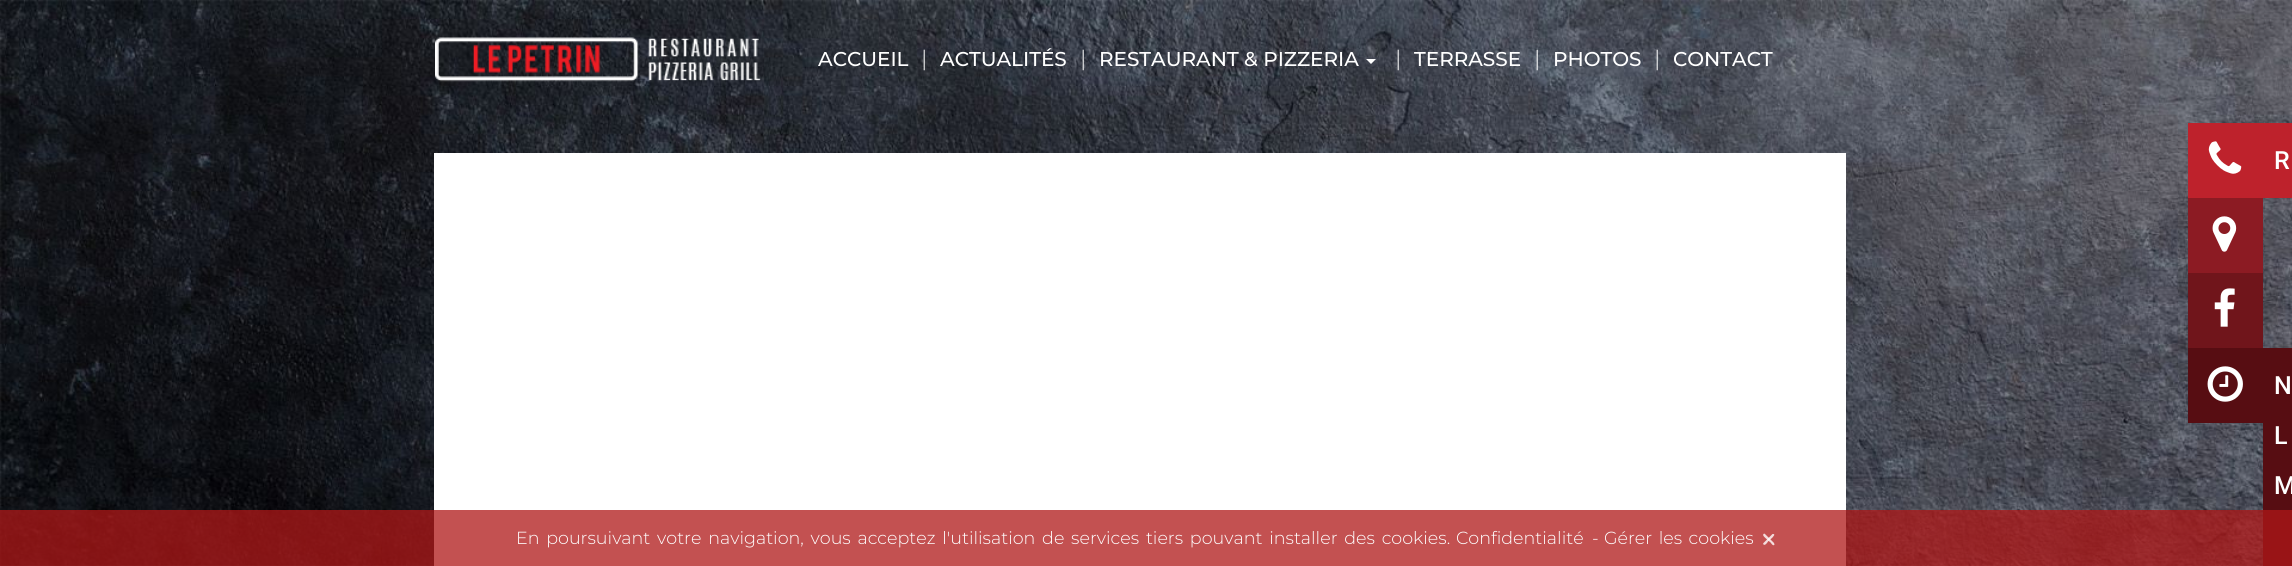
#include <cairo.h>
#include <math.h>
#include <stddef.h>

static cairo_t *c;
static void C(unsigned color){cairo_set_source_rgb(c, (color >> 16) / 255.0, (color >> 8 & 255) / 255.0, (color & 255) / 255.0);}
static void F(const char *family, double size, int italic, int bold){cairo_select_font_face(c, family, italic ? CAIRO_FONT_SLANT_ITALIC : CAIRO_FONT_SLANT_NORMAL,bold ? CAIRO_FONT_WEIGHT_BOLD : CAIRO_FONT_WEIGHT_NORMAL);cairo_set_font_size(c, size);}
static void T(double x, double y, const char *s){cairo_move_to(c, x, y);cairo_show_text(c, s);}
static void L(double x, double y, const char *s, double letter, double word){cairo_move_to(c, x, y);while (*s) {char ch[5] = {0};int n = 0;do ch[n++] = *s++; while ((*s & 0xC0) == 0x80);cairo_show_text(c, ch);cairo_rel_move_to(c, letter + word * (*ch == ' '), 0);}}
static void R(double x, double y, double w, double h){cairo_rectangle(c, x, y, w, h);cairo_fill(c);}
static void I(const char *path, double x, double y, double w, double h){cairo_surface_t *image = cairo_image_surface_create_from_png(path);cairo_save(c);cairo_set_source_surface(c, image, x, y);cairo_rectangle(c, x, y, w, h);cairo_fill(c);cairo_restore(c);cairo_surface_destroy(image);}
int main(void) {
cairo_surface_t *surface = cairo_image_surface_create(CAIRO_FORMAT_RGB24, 2292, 566);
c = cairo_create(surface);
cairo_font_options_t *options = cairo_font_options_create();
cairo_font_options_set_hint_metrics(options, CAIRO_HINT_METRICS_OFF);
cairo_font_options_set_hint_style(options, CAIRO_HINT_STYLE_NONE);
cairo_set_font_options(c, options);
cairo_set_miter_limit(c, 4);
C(0xffffff);
cairo_paint(c);
I("1.png",0,0,2292,566);
I("2.png",435,37,326,45);
F("Montserrat Medium",20,0,0);
C(0xffffff);
T(818,66,"ACCUEIL");
F("Montserrat Light",22,0,0);
T(921,66,"|");
F("Montserrat Medium",20,0,0);
T(940,66,"ACTUALITÉS");
F("Montserrat Light",22,0,0);
T(1080,66,"|");
F("Montserrat Medium",20,0,0);
T(1099,66,"RESTAURANT & PIZZERIA");
cairo_new_path(c);
cairo_move_to(c,1366,59);
cairo_line_to(c,1376,59);
cairo_line_to(c,1371,64);
cairo_close_path(c);
cairo_fill(c);
F("Montserrat Light",22,0,0);
T(1395,66,"|");
F("Montserrat Medium",20,0,0);
T(1414,66,"TERRASSE");
F("Montserrat Light",22,0,0);
T(1534,66,"|");
F("Montserrat Medium",20,0,0);
T(1553,66,"PHOTOS");
F("Montserrat Light",22,0,0);
T(1654,66,"|");
F("Montserrat Medium",20,0,0);
T(1673,66,"CONTACT");
C(0xbe222c);
R(2188,123,104,75);
I("3.png",2208,141,34,33);
F("Roboto Medium",25,0,0);
C(0xffffff);
T(2274,169,"R");
C(0x8c1b23);
R(2188,198,75,75);
I("4.png",2212,216,25,36);
C(0x70151b);
R(2188,273,75,75);
I("5.png",2214,288,21,39);
C(0x570d12);
R(2188,348,75,75);
I("6.png",2207,366,36,36);
R(2263,348,29,218);
C(0xffffff);
T(2274,394,"N");
T(2274,444,"L");
T(2274,494,"M");
R(434,153,1412,413);
cairo_set_source_rgba(c,0.686,0.09,0.09,0.75);
R(0,510,2292,56);
F("Montserrat Light",17.5,0,0);
C(0xffffff);
L(516,544,"En poursuivant votre navigation, vous acceptez l'utilisation de services tiers pouvant installer des cookies.",0,2.25);
T(1456,544,"Confidentialité");
T(1592,544,"-");
L(1604,544,"Gérer les cookies",0,2);
C(0xf3dcdc);
cairo_new_path(c);
cairo_move_to(c,1765,534);
cairo_line_to(c,1774,543);
cairo_line_to(c,1774.5,544.5);
cairo_curve_to(c,1773.5,546.5,1771.5,544,1771,543);
cairo_line_to(c,1766.5,539);
cairo_curve_to(c,1765.5,538,1762,535.5,1763.5,534);
cairo_curve_to(c,1764,533.5,1764.5,533.5,1765,534);
cairo_close_path(c);
cairo_fill(c);
cairo_set_source_rgba(c,1,1,1,0.8);
cairo_new_path(c);
cairo_move_to(c,1763.5,543);
cairo_line_to(c,1772.5,534);
cairo_line_to(c,1773.5,534);
cairo_curve_to(c,1775.5,534.5,1773,536.5,1772.5,537.5);
cairo_line_to(c,1768,541.5);
cairo_curve_to(c,1767.5,542.5,1765,546,1763.5,544.5);
cairo_curve_to(c,1763,544,1763,543.5,1763.5,543);
cairo_close_path(c);
cairo_fill(c);
cairo_surface_write_to_png(surface, "o.png");
cairo_font_options_destroy(options);
cairo_destroy(c);
cairo_surface_destroy(surface);
return 0;
}
